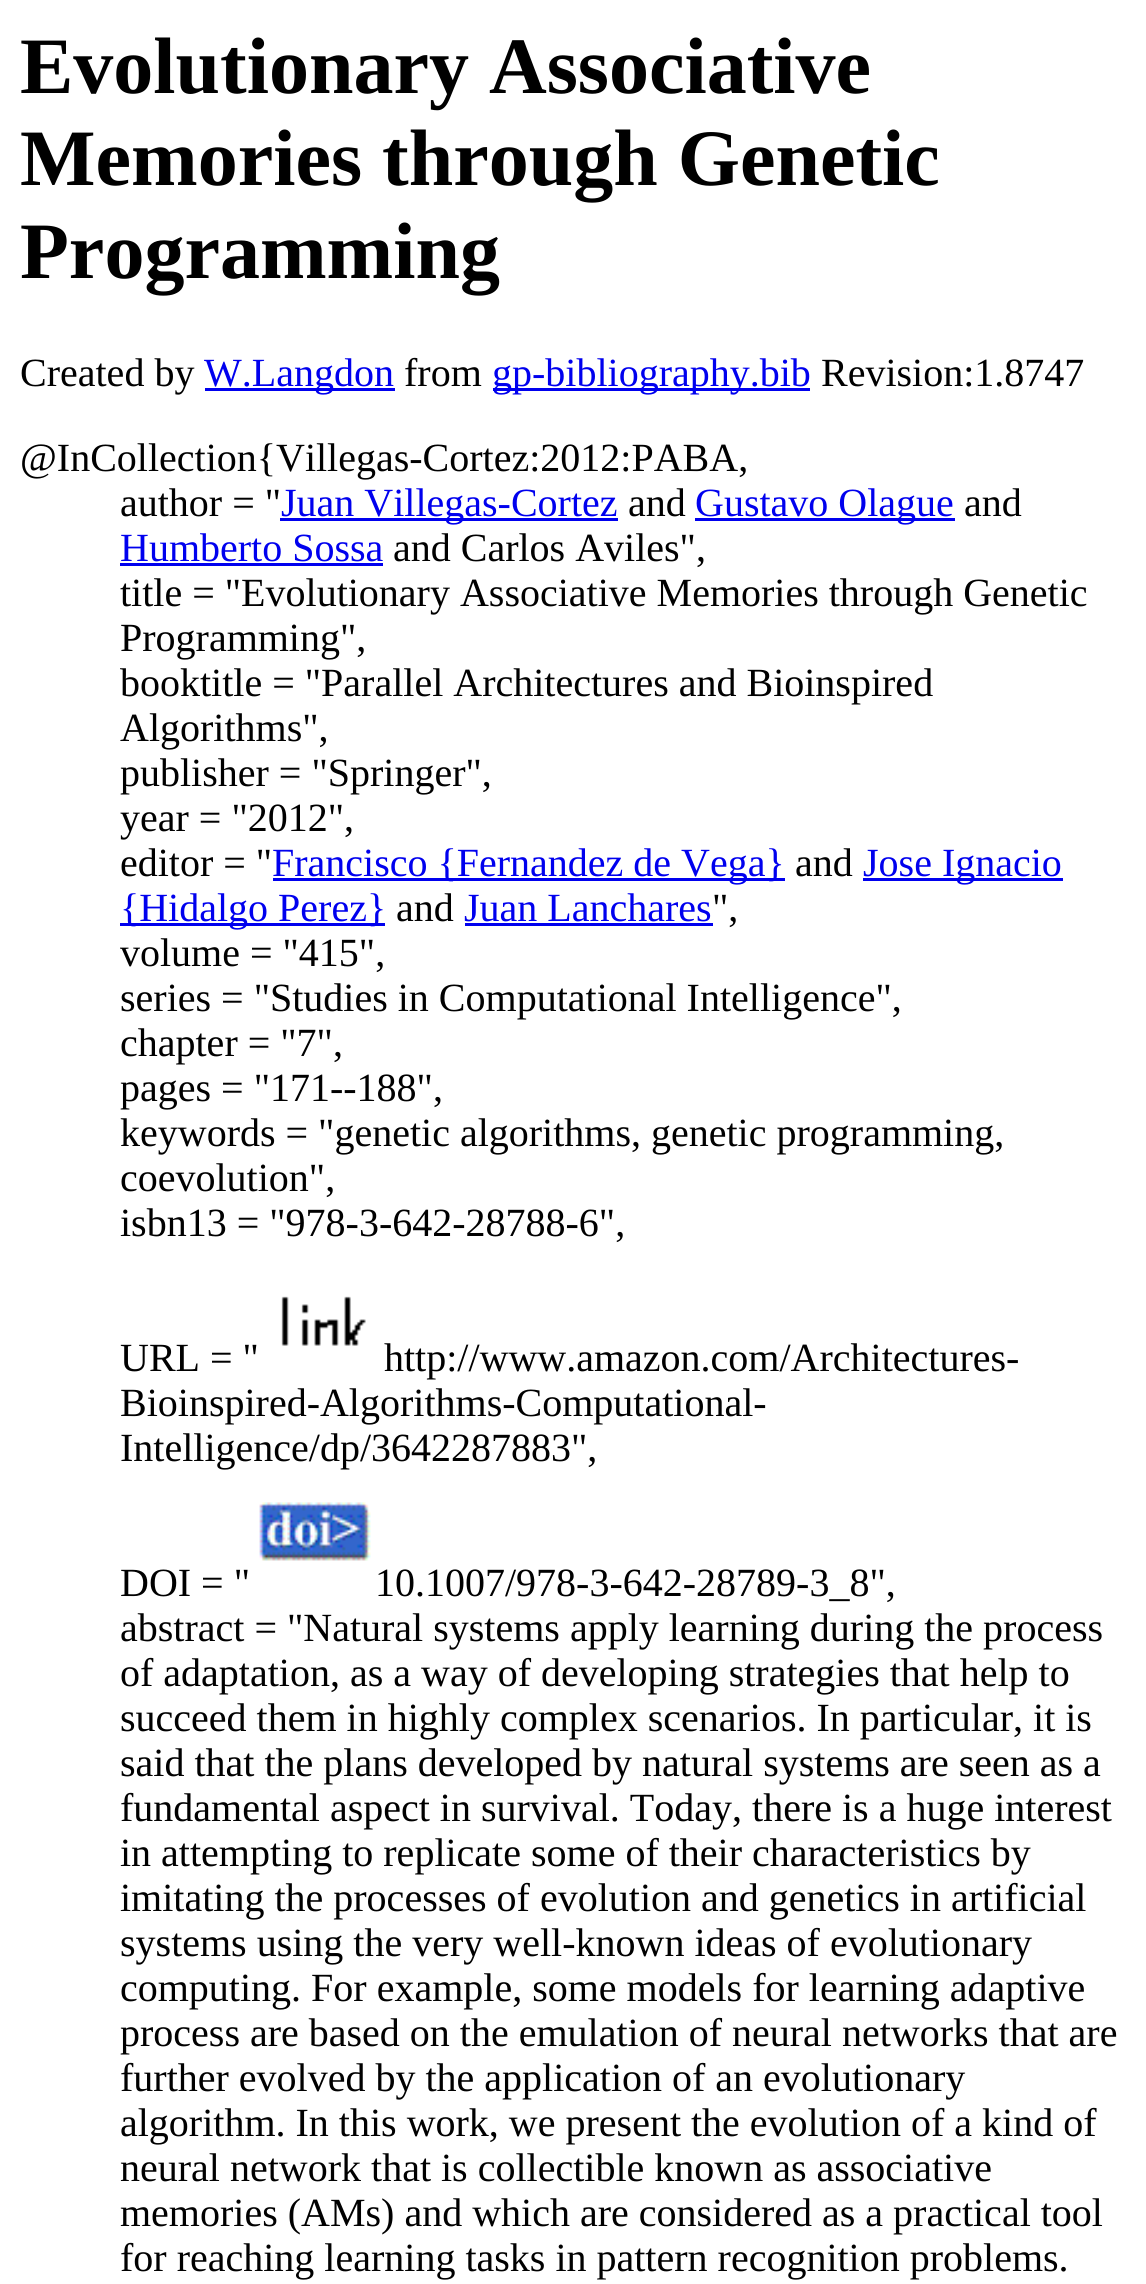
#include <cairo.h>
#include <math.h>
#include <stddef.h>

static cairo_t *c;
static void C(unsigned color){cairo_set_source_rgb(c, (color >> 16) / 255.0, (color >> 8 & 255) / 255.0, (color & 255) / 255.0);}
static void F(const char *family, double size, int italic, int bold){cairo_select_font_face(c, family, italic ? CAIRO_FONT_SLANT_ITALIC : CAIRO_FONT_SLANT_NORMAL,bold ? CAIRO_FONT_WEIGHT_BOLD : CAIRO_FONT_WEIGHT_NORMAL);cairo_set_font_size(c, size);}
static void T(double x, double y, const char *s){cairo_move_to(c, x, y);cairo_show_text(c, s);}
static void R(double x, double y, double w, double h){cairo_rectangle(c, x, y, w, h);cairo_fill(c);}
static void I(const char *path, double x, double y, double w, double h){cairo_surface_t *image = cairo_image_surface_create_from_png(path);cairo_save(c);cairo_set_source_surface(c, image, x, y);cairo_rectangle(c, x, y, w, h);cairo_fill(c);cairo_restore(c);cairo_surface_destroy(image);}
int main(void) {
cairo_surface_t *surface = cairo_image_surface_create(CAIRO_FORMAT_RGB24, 1146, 2284);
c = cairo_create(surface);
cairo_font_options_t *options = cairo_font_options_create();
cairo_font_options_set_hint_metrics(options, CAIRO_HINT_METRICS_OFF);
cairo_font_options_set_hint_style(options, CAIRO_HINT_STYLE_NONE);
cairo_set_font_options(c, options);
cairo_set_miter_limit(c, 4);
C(0xffffff);
cairo_paint(c);
F("Liberation Serif",80,0,1);
C(0x000000);
T(20,93,"Evolutionary Associative");
T(20,185,"Memories through Genetic");
T(20,278,"Programming");
F("Liberation Serif",40,0,0);
T(20,386,"Created by");
C(0x0000ee);
R(205,388,190,3);
T(204,386,"W.Langdon");
C(0x000000);
T(404,386,"from");
C(0x0000ee);
R(493,388,317,3);
T(492,386,"gp-bibliography.bib");
C(0x000000);
T(821,386,"Revision:1.8747");
T(20,471,"@InCollection{Villegas-Cortez:2012:PABA,");
T(120,516,"author = \"");
C(0x0000ee);
R(280,518,338,3);
T(281,516,"Juan Villegas-Cortez");
C(0x000000);
T(628,516,"and");
C(0x0000ee);
R(695,518,260,3);
T(695,516,"Gustavo Olague");
C(0x000000);
T(964,516,"and");
C(0x0000ee);
T(120,561,"Humberto Sossa");
R(120,563,263,3);
C(0x000000);
T(393,561,"and Carlos Aviles\",");
T(120,606,"title = \"Evolutionary Associative Memories through Genetic");
T(120,651,"Programming\",");
T(120,696,"booktitle = \"Parallel Architectures and Bioinspired");
T(120,741,"Algorithms\",");
T(120,786,"publisher = \"Springer\",");
T(120,831,"year = \"2012\",");
T(120,876,"editor = \"");
C(0x0000ee);
R(273,878,512,3);
T(272,876,"Francisco {Fernandez de Vega}");
C(0x000000);
T(795,876,"and");
C(0x0000ee);
R(863,878,200,3);
T(863,876,"Jose Ignacio");
R(120,923,265,3);
T(120,921,"{Hidalgo Perez}");
C(0x000000);
T(396,921,"and");
C(0x0000ee);
T(464,921,"Juan Lanchares");
R(465,923,248,3);
C(0x000000);
T(712,921,"\",");
T(120,966,"volume = \"415\",");
T(120,1011,"series = \"Studies in Computational Intelligence\",");
T(120,1056,"chapter = \"7\",");
T(120,1101,"pages = \"171--188\",");
T(120,1146,"keywords = \"genetic algorithms, genetic programming,");
T(120,1191,"coevolution\",");
T(120,1236,"isbn13 = \"978-3-642-28788-6\",");
I("1.png",281,1296,85,50);
T(120,1371,"URL = \"");
T(384,1371,"http://www.amazon.com/Architectures-");
T(120,1416,"Bioinspired-Algorithms-Computational-");
T(120,1461,"Intelligence/dp/3642287883\",");
I("2.png",259,1502,112,59);
T(120,1596,"DOI = \"");
T(375,1596,"10.1007/978-3-642-28789-3_8\",");
T(120,1641,"abstract = \"Natural systems apply learning during the process");
T(120,1686,"of adaptation, as a way of developing strategies that help to");
T(120,1731,"succeed them in highly complex scenarios. In particular, it is");
T(120,1776,"said that the plans developed by natural systems are seen as a");
T(120,1821,"fundamental aspect in survival. Today, there is a huge interest");
T(120,1866,"in attempting to replicate some of their characteristics by");
T(120,1911,"imitating the processes of evolution and genetics in artificial");
T(120,1956,"systems using the very well-known ideas of evolutionary");
T(120,2001,"computing. For example, some models for learning adaptive");
T(120,2046,"process are based on the emulation of neural networks that are");
T(120,2091,"further evolved by the application of an evolutionary");
T(120,2136,"algorithm. In this work, we present the evolution of a kind of");
T(120,2181,"neural network that is collectible known as associative");
T(120,2226,"memories (AMs) and which are considered as a practical tool");
T(120,2271,"for reaching learning tasks in pattern recognition problems.");
cairo_surface_write_to_png(surface, "o.png");
cairo_font_options_destroy(options);
cairo_destroy(c);
cairo_surface_destroy(surface);
return 0;
}
